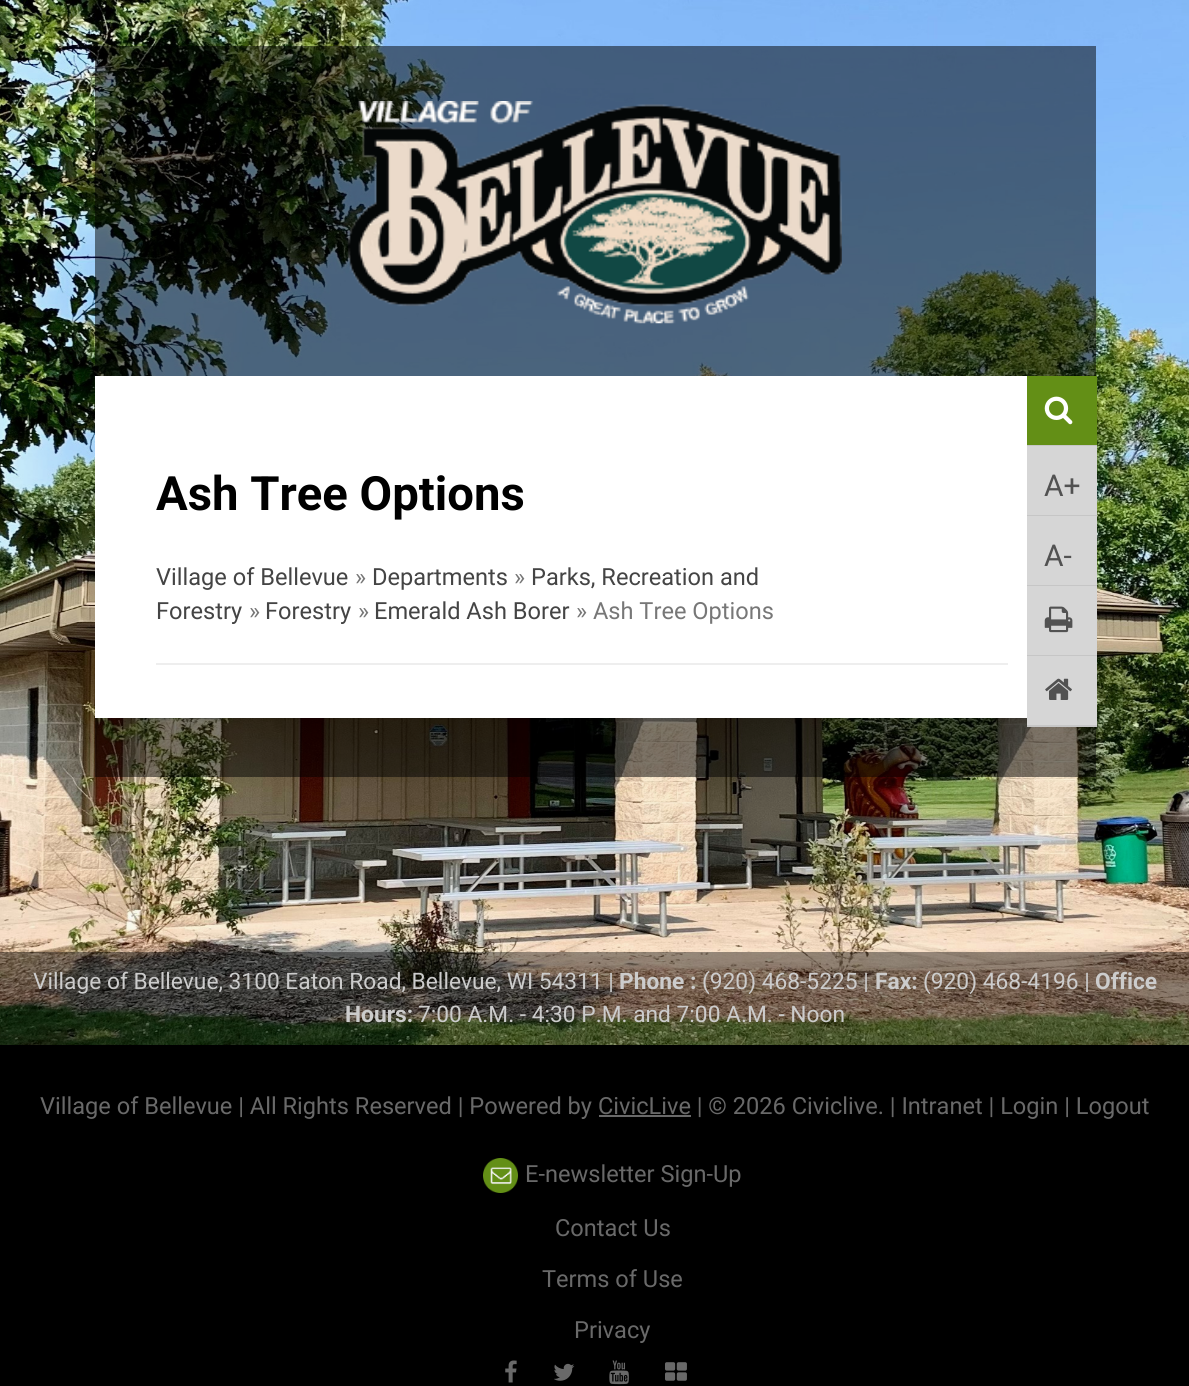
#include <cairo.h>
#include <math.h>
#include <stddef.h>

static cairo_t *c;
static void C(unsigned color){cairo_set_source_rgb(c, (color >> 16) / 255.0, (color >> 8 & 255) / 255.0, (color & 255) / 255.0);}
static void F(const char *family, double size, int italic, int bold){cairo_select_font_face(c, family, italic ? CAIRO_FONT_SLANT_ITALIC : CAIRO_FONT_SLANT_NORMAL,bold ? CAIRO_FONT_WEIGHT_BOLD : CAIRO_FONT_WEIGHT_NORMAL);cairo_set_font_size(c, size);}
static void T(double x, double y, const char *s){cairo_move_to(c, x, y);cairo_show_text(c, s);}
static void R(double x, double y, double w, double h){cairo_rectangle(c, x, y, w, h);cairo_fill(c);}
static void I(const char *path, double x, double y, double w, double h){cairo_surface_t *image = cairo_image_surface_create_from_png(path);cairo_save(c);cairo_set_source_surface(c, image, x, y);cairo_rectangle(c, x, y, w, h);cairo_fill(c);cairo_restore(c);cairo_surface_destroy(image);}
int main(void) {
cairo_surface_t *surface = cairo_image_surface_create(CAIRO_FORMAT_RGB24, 1189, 1386);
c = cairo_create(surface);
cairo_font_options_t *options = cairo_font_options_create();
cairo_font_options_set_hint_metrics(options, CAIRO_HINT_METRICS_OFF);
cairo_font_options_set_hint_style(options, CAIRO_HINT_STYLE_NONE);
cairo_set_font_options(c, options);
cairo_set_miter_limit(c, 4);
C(0xffffff);
cairo_paint(c);
I("1.png",0,0,1189,1045);
cairo_set_source_rgba(c,0,0,0,0.5);
R(95,46,1001,731);
I("2.png",348,101,494,223);
C(0xffffff);
R(95,376,932,342);
F("Roboto",47.25,0,1);
C(0x000000);
T(156,510,"Ash Tree Options");
C(0x638f16);
R(1027,376,70,69);
C(0xc6c6c6);
R(1027,445,70,1);
I("3.png",1044,396,29,29);
C(0xd6d6d6);
R(1027,446,70,69);
C(0xc6c6c6);
R(1027,515,70,1);
F("Roboto",30,0,0);
C(0x525252);
T(1044,496,"A+");
C(0xd6d6d6);
R(1027,516,70,69);
C(0xc6c6c6);
R(1027,585,70,1);
C(0x525252);
T(1044,566,"A-");
C(0xd6d6d6);
R(1027,586,70,69);
C(0xc6c6c6);
R(1027,655,70,1);
I("4.png",1044,606,29,27);
C(0xd6d6d6);
R(1027,656,70,69);
C(0xc6c6c6);
R(1027,725,70,2);
I("5.png",1045,678,27,22);
F("Roboto",23.6,0,0);
C(0x444444);
T(156,585,"Village of Bellevue");
C(0x777777);
T(355,585,"»");
C(0x444444);
T(372,585,"Departments");
C(0x777777);
T(514,585,"»");
C(0x444444);
T(531,585,"Parks, Recreation and");
T(156,619,"Forestry");
C(0x777777);
T(249,619,"»");
C(0x444444);
T(265,619,"Forestry");
C(0x777777);
T(358,619,"»");
C(0x444444);
T(374,619,"Emerald Ash Borer");
C(0x777777);
T(576,619,"» Ash Tree Options");
C(0xeeeeee);
R(156,663,852,2);
cairo_set_source_rgba(c,0,0,0,0.4);
R(0,952,1189,93);
F("Roboto",22.75,0,0);
C(0xcccccc);
T(33,989,"Village of Bellevue, 3100 Eaton Road, Bellevue, WI 54311 |");
F("Roboto",22.75,0,1);
T(619,989,"Phone :");
F("Roboto",22.75,0,0);
T(702,989,"(920) 468-5225 |");
F("Roboto",22.75,0,1);
T(875,989,"Fax:");
F("Roboto",22.75,0,0);
T(923,989,"(920) 468-4196 |");
F("Roboto",22.75,0,1);
T(1095,989,"Office");
T(345,1022,"Hours:");
F("Roboto",22.75,0,0);
T(418,1022,"7:00 A.M. - 4:30 P.M. and 7:00 A.M. - Noon");
C(0x000000);
R(0,1045,1189,341);
F("Roboto",23.6,0,0);
C(0x696969);
T(40,1114,"Village of Bellevue | All Rights Reserved | Powered by CivicLive | © 2026 Civiclive. | Intranet | Login | Logout");
R(599,1115,92,2);
I("6.png",483,1158,35,35);
T(525,1182,"E-newsletter Sign-Up");
T(555,1236,"Contact Us");
T(542,1287,"Terms of Use");
T(574,1338,"Privacy");
I("7.png",505,1360,12,23);
I("8.png",554,1363,21,18);
I("9.png",609,1360,20,25);
I("10.png",665,1362,22,19);
cairo_surface_write_to_png(surface, "o.png");
cairo_font_options_destroy(options);
cairo_destroy(c);
cairo_surface_destroy(surface);
return 0;
}
